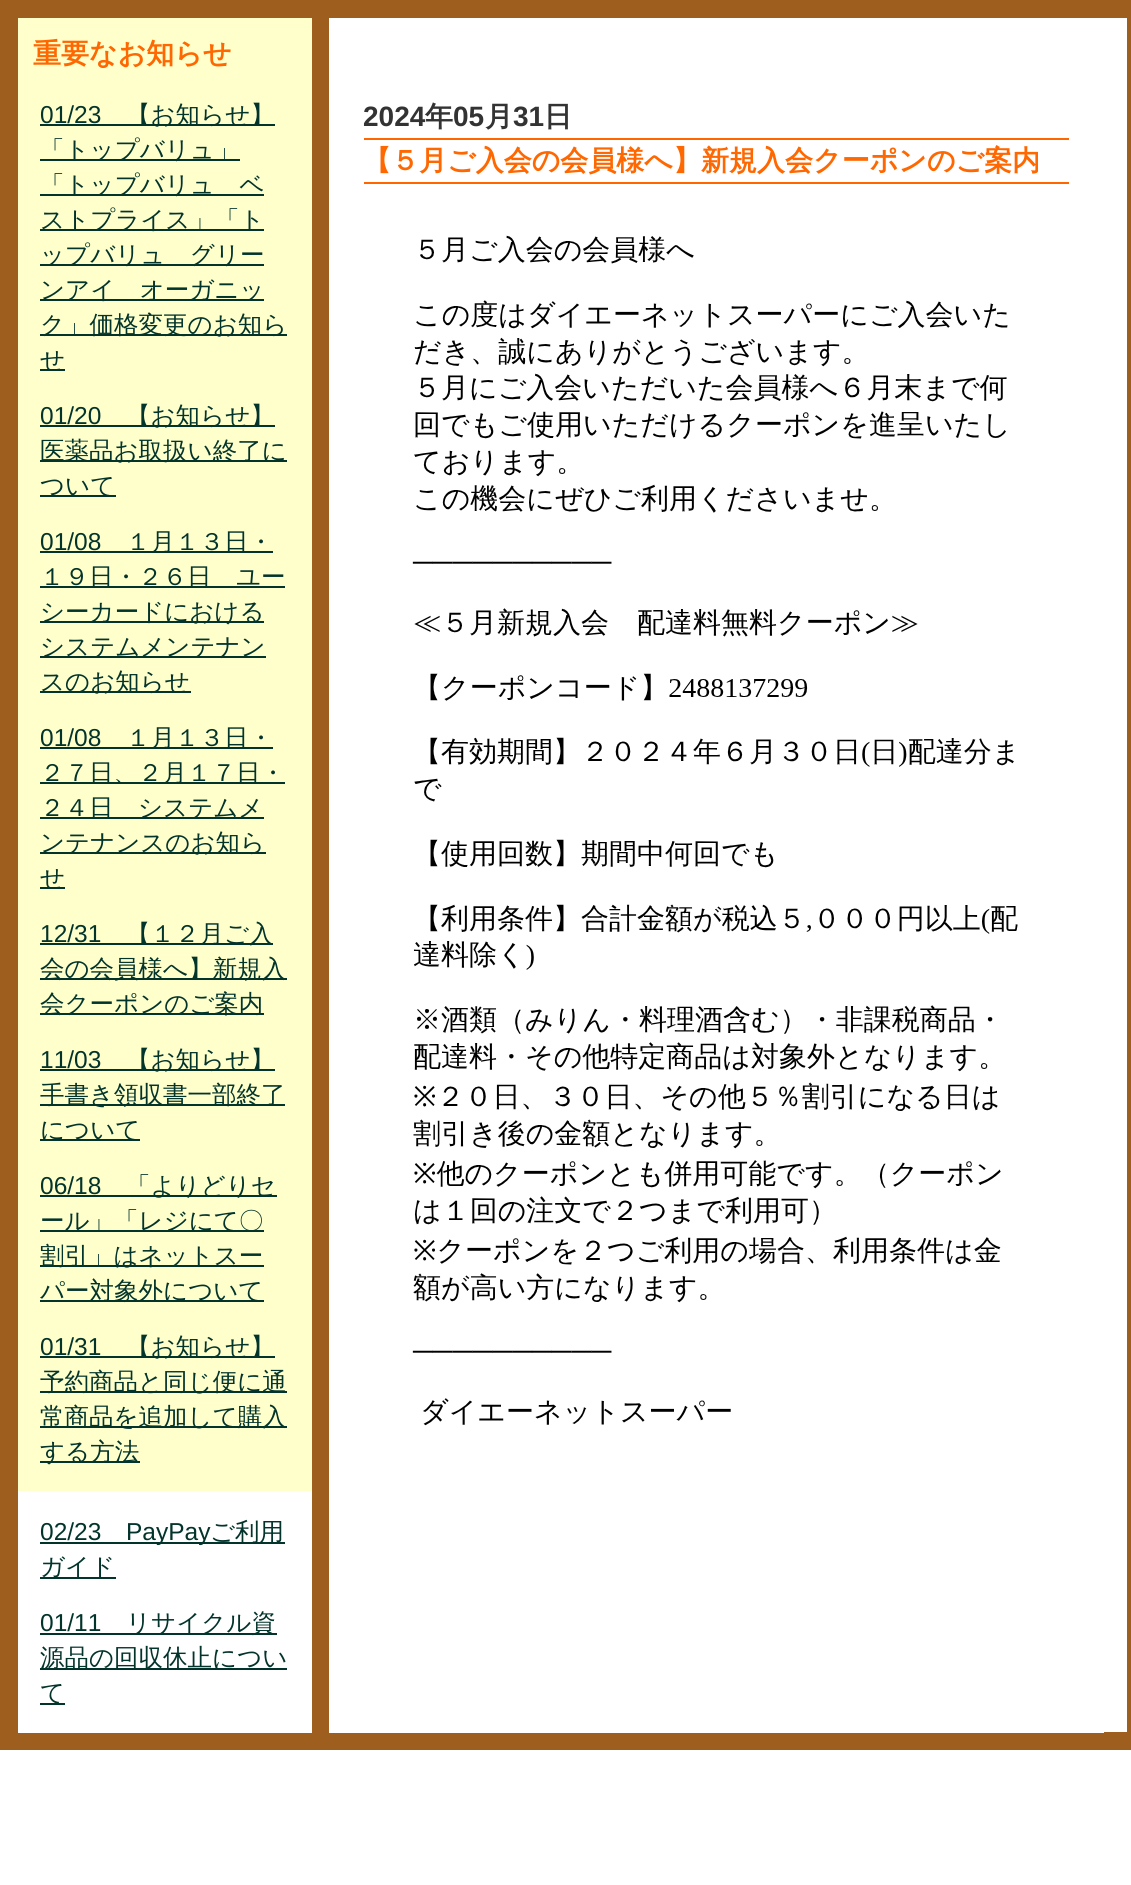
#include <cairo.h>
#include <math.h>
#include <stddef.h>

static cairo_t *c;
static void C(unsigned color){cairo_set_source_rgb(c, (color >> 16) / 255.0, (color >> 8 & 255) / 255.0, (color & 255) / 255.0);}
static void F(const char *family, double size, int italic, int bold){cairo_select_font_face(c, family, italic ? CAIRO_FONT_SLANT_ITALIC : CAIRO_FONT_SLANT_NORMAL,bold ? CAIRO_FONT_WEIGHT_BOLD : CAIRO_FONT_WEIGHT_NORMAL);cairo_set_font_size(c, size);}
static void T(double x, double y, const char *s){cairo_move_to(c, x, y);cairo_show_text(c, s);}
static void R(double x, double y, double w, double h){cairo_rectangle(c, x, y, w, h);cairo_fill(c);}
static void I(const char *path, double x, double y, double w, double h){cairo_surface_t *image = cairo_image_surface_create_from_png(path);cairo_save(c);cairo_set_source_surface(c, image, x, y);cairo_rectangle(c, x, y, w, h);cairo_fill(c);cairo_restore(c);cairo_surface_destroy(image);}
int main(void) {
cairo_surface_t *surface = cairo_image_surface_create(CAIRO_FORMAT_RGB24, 1131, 1885);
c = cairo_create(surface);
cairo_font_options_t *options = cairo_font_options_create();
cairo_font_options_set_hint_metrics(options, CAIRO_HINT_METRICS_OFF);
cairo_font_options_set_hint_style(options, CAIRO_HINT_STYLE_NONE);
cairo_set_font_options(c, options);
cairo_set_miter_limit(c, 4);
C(0xffffff);
cairo_paint(c);
cairo_rectangle(c,9,9,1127,1732);
C(0x9e5e1e);
cairo_set_line_width(c,18);
cairo_stroke(c);
R(312,18,17,1714);
C(0xffffcc);
R(18,18,294,1473);
F("WenQuanYi Zen Hei",28,0,1);
C(0xff6700);
T(33,63,"重要なお知らせ");
F("Liberation Sans",24.5,0,0);
C(0x03342c);
T(40,123,"01/23");
R(40,124,235,2);
F("WenQuanYi Zen Hei Medium",24.5,0,0);
T(126,123,"【お知らせ】");
R(40,159,200,2);
T(40,158,"「トップバリュ」");
R(40,194,224,2);
T(40,193,"「トップバリュ　ベ");
R(40,229,224,2);
T(40,228,"ストプライス」「ト");
R(40,264,224,2);
T(40,263,"ップバリュ　グリー");
R(40,299,224,2);
T(40,298,"ンアイ　オーガニッ");
R(40,334,247,2);
T(40,333,"ク」価格変更のお知ら");
R(40,369,25,2);
T(40,368,"せ");
F("Liberation Sans",24.5,0,0);
T(40,424,"01/20");
R(40,425,235,2);
F("WenQuanYi Zen Hei Medium",24.5,0,0);
T(126,424,"【お知らせ】");
R(40,460,247,2);
T(40,459,"医薬品お取扱い終了に");
R(40,495,76,2);
T(40,494,"ついて");
F("Liberation Sans",24.5,0,0);
T(40,550,"01/08");
R(40,551,233,2);
F("WenQuanYi Zen Hei Medium",24.5,0,0);
T(126,550,"１月１３日・");
R(40,586,245,2);
T(40,585,"１９日・２６日　ユー");
R(40,621,224,2);
T(40,620,"シーカードにおける");
R(40,656,226,2);
T(40,655,"システムメンテナン");
R(40,691,151,2);
T(40,690,"スのお知らせ");
F("Liberation Sans",24.5,0,0);
T(40,746,"01/08");
R(40,747,233,2);
F("WenQuanYi Zen Hei Medium",24.5,0,0);
T(126,746,"１月１３日・");
R(40,782,245,2);
T(40,781,"２７日、２月１７日・");
R(40,817,224,2);
T(40,816,"２４日　システムメ");
R(40,852,226,2);
T(40,851,"ンテナンスのお知ら");
R(40,887,25,2);
T(40,886,"せ");
F("Liberation Sans",24.5,0,0);
T(40,942,"12/31");
R(40,943,233,2);
F("WenQuanYi Zen Hei Medium",24.5,0,0);
T(126,942,"【１２月ご入");
R(40,978,247,2);
T(40,977,"会の会員様へ】新規入");
R(40,1013,224,2);
T(40,1012,"会クーポンのご案内");
F("Liberation Sans",24.5,0,0);
T(40,1068,"11/03");
R(40,1069,235,2);
F("WenQuanYi Zen Hei Medium",24.5,0,0);
T(126,1068,"【お知らせ】");
R(40,1104,245,2);
T(40,1103,"手書き領収書一部終了");
R(40,1139,100,2);
T(40,1138,"について");
F("Liberation Sans",24.5,0,0);
T(40,1194,"06/18");
R(40,1195,237,2);
F("WenQuanYi Zen Hei Medium",24.5,0,0);
T(126,1194,"「よりどりセ");
R(40,1230,224,2);
T(40,1229,"ール」「レジにて〇");
R(40,1265,224,2);
T(40,1264,"割引」はネットスー");
R(40,1300,224,2);
T(40,1299,"パー対象外について");
F("Liberation Sans",24.5,0,0);
T(40,1355,"01/31");
R(40,1356,235,2);
F("WenQuanYi Zen Hei Medium",24.5,0,0);
T(126,1355,"【お知らせ】");
R(40,1391,247,2);
T(40,1390,"予約商品と同じ便に通");
R(40,1426,247,2);
T(40,1425,"常商品を追加して購入");
R(40,1461,100,2);
T(40,1460,"する方法");
C(0xffffff);
R(18,1732,294,1);
F("Liberation Sans",24.5,0,0);
C(0x03342c);
T(40,1540,"02/23");
R(40,1542,245,2);
T(126,1540,"PayPay");
F("WenQuanYi Zen Hei Medium",24.5,0,0);
T(210,1540,"ご利用");
R(40,1577,76,2);
T(40,1575,"ガイド");
F("Liberation Sans",24.5,0,0);
T(40,1631,"01/11");
R(40,1633,237,2);
F("WenQuanYi Zen Hei Medium",24.5,0,0);
T(126,1631,"リサイクル資");
R(40,1668,247,2);
T(40,1666,"源品の回収休止につい");
R(40,1703,25,2);
T(40,1701,"て");
C(0xffffff);
R(329,1732,775,1);
F("Liberation Sans",28,0,1);
C(0x333333);
T(363,126,"2024");
F("WenQuanYi Zen Hei",28,0,1);
T(425,126,"年");
F("Liberation Sans",28,0,1);
T(453,126,"05");
F("WenQuanYi Zen Hei",28,0,1);
T(485,126,"月");
F("Liberation Sans",28,0,1);
T(513,126,"31");
F("WenQuanYi Zen Hei",28,0,1);
T(544,126,"日");
C(0xff6600);
R(364,138,705,2);
R(364,182,705,2);
C(0xff6700);
T(363,170,"【５月ご入会の会員様へ】新規入会クーポンのご案内");
I("1.png",412,235,606,1191);
cairo_surface_write_to_png(surface, "o.png");
cairo_font_options_destroy(options);
cairo_destroy(c);
cairo_surface_destroy(surface);
return 0;
}
